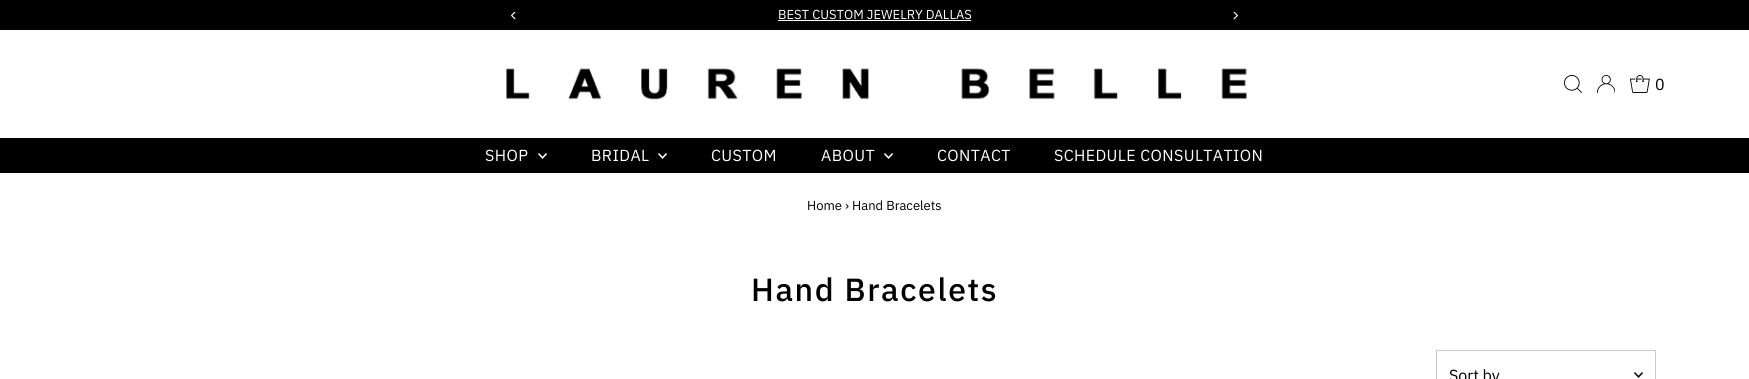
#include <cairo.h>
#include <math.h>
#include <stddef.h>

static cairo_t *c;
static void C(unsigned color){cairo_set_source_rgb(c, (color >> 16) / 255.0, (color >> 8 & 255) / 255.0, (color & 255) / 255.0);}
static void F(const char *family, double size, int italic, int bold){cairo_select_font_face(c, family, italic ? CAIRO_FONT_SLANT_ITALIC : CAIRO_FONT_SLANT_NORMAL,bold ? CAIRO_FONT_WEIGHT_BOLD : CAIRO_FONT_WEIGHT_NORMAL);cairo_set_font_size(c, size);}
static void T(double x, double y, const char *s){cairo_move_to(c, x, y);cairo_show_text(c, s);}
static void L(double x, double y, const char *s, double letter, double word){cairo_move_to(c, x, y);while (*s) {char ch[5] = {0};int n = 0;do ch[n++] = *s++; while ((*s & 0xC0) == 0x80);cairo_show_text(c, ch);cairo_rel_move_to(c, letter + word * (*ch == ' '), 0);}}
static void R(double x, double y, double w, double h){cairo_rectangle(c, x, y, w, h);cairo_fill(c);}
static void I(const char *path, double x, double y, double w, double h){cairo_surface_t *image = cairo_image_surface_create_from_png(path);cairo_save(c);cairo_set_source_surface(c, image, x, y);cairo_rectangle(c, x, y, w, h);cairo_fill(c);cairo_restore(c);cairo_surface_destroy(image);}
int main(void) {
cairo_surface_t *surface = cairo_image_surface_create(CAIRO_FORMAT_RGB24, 1749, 379);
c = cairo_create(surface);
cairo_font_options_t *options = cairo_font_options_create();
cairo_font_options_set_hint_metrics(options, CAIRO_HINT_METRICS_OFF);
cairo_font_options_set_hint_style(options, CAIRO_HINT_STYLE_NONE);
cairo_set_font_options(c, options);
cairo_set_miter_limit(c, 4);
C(0xffffff);
cairo_paint(c);
C(0x000000);
R(0,0,1749,30);
I("1.png",510,12,6,8);
F("IBM Plex Sans",13,0,0);
C(0xffffff);
T(778,19,"BEST CUSTOM JEWELRY DALLAS");
R(778,20,193,1);
I("2.png",1233,12,6,8);
I("3.png",506,68,741,32);
I("4.png",1564,75,18,18);
I("5.png",1597,75,18,18);
I("6.png",1630,75,20,18);
F("IBM Plex Sans",16,0,0);
C(0x000000);
T(1655,90,"0");
R(0,138,1749,35);
C(0xffffff);
L(485,161,"SHOP",.4,0);
I("7.png",538,153,9,6);
L(591,161,"BRIDAL",.4,0);
I("7.png",658,153,9,6);
L(711,161,"CUSTOM",.4,0);
L(821,161,"ABOUT",.4,0);
I("7.png",884,153,9,6);
L(937,161,"CONTACT",.4,0);
L(1054,161,"SCHEDULE CONSULTATION",.4,0);
F("IBM Plex Sans",13,0,0);
C(0x000000);
T(807,210,"Home › Hand Bracelets");
F("IBM Plex Sans Medium",32,0,0);
L(751,301,"Hand Bracelets",1.6,0);
cairo_rectangle(c,1436.5,350.5,219,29);
C(0xcccccc);
cairo_set_line_width(c,1);
cairo_stroke(c);
F("IBM Plex Sans",16,0,0);
C(0x000000);
T(1449,381,"Sort by");
I("8.png",1634,372,9,6);
cairo_surface_write_to_png(surface, "o.png");
cairo_font_options_destroy(options);
cairo_destroy(c);
cairo_surface_destroy(surface);
return 0;
}
